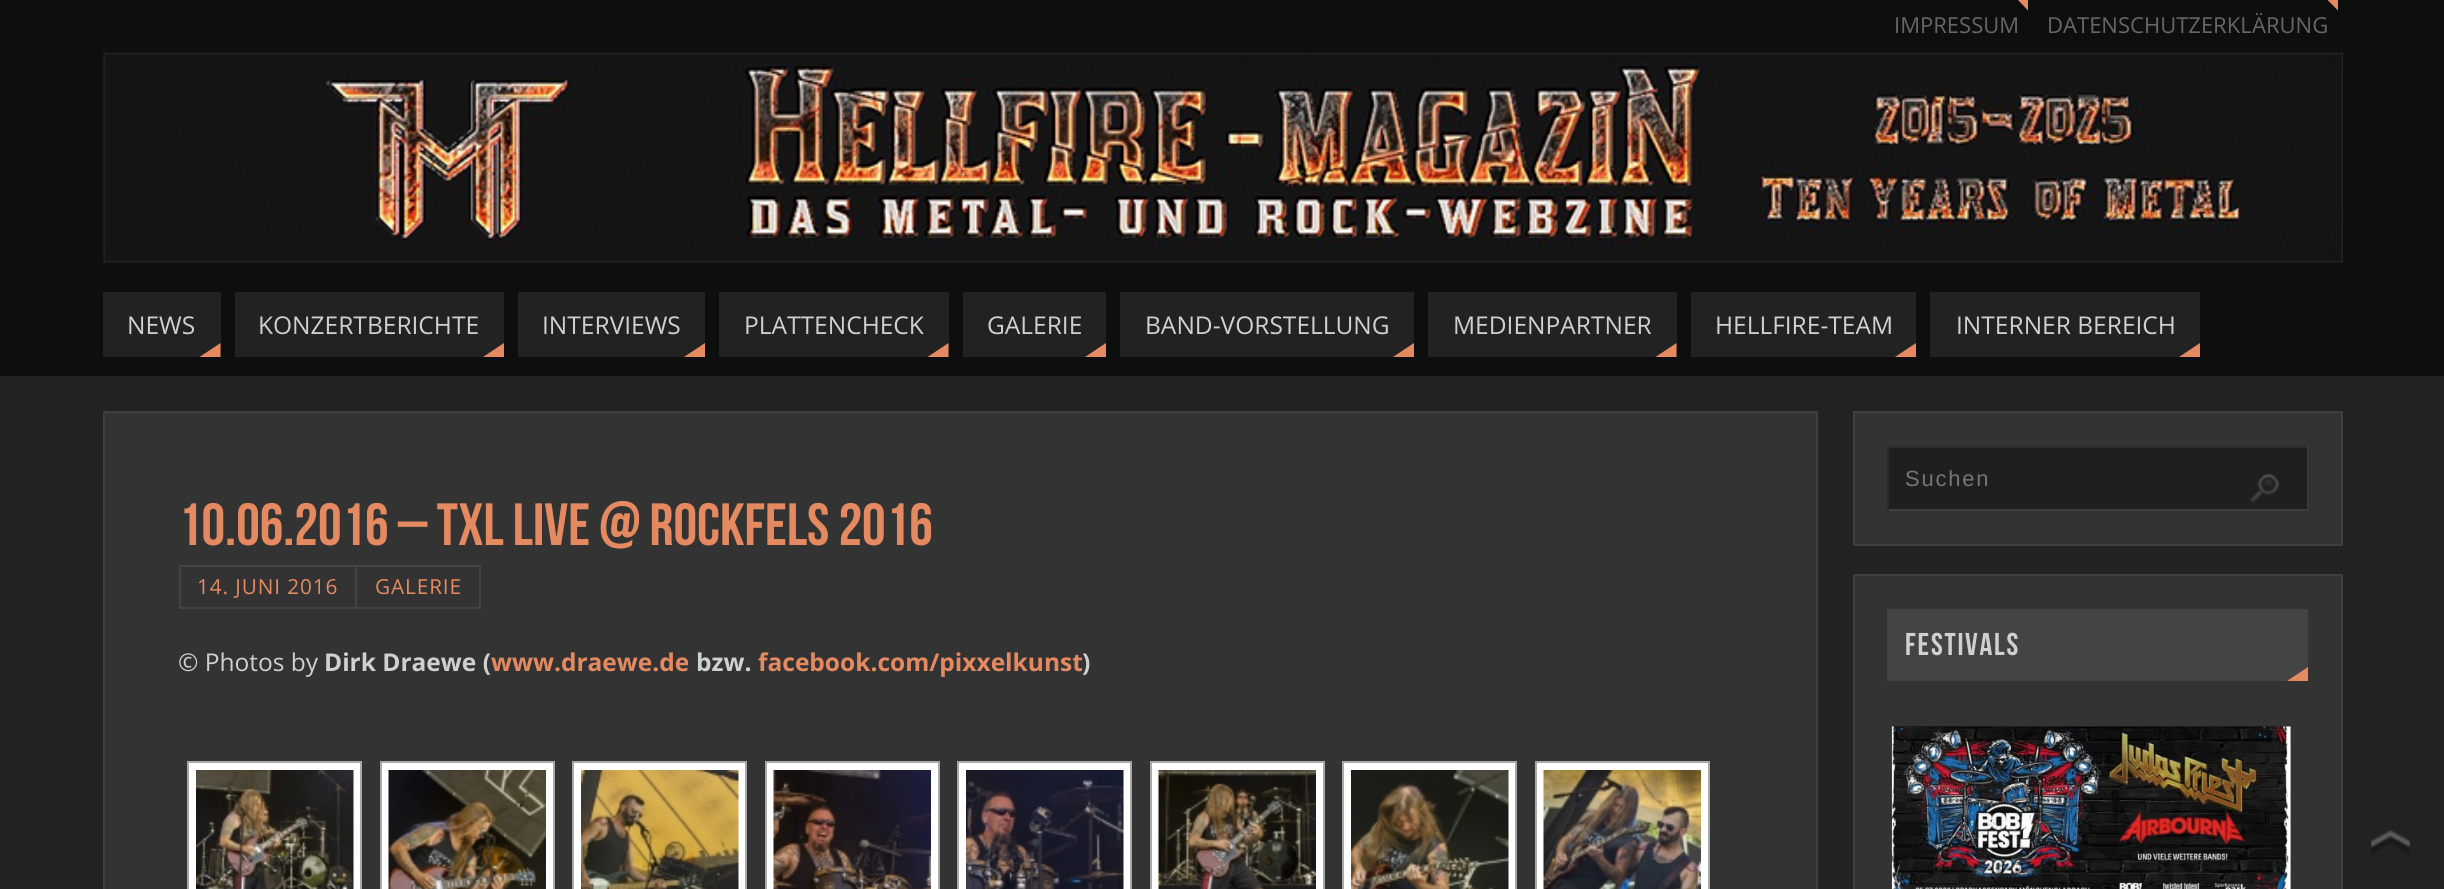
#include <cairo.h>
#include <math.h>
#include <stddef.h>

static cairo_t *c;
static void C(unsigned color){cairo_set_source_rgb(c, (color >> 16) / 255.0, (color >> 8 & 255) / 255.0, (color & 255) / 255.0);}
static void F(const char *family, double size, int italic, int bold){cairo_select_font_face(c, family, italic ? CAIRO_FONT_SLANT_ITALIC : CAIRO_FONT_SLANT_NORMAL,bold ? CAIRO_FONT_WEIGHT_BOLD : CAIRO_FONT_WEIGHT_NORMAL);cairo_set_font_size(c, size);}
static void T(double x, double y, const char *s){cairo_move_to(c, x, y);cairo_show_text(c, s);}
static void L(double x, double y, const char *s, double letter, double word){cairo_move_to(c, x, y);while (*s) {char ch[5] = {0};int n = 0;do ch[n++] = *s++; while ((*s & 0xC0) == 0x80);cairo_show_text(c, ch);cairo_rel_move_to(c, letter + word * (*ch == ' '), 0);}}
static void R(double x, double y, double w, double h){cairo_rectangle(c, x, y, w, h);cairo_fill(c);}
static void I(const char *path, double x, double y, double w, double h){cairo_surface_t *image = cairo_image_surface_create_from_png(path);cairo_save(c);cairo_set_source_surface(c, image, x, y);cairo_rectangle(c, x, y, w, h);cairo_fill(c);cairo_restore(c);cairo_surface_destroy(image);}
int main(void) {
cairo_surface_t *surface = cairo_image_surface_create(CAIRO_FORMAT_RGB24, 2444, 889);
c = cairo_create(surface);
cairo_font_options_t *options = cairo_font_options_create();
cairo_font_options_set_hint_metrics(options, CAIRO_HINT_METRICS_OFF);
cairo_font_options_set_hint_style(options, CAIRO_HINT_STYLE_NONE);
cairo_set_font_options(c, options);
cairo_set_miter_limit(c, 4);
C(0x222222);
cairo_paint(c);
C(0x0e0e0e);
R(0,0,2444,376);
C(0xe58a60);
cairo_new_path(c);
cairo_move_to(c,2018,0);
cairo_line_to(c,2028,0);
cairo_line_to(c,2028,10.5);
cairo_close_path(c);
cairo_fill(c);
F("Open Sans",22,0,0);
C(0x666666);
T(1894,33,"IMPRESSUM");
C(0xe58a60);
cairo_new_path(c);
cairo_move_to(c,2327.5,0);
cairo_line_to(c,2338,0);
cairo_line_to(c,2338,10.5);
cairo_close_path(c);
cairo_fill(c);
C(0x666666);
T(2047,33,"DATENSCHUTZERKL");
F("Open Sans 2",22,0,0);
T(2252,33,"Ä");
F("Open Sans",22,0,0);
T(2266,33,"RUNG");
I("1.png",103,52,2240,211);
C(0x222222);
R(103,292,118,65);
F("Open Sans",24.5,0,0);
C(0xd0d0d0);
T(127,334,"NEWS");
C(0xe58a60);
cairo_new_path(c);
cairo_move_to(c,220.5,357);
cairo_line_to(c,199.5,357);
cairo_line_to(c,220.5,343);
cairo_close_path(c);
cairo_fill(c);
C(0x222222);
R(235,292,269,65);
C(0xd0d0d0);
T(258,334,"KONZERTBERICHTE");
C(0xe58a60);
cairo_new_path(c);
cairo_move_to(c,504,357);
cairo_line_to(c,483,357);
cairo_line_to(c,504,343);
cairo_close_path(c);
cairo_fill(c);
C(0x222222);
R(518,292,187,65);
C(0xd0d0d0);
T(542,334,"INTERVIEWS");
C(0xe58a60);
cairo_new_path(c);
cairo_move_to(c,705,357);
cairo_line_to(c,684,357);
cairo_line_to(c,705,343);
cairo_close_path(c);
cairo_fill(c);
C(0x222222);
R(719,292,230,65);
C(0xd0d0d0);
T(744,334,"PLATTENCHECK");
C(0xe58a60);
cairo_new_path(c);
cairo_move_to(c,948.5,357);
cairo_line_to(c,927.5,357);
cairo_line_to(c,948.5,343);
cairo_close_path(c);
cairo_fill(c);
C(0x222222);
R(963,292,143,65);
C(0xd0d0d0);
T(987,334,"GALERIE");
C(0xe58a60);
cairo_new_path(c);
cairo_move_to(c,1106,357);
cairo_line_to(c,1085,357);
cairo_line_to(c,1106,343);
cairo_close_path(c);
cairo_fill(c);
C(0x222222);
R(1120,292,294,65);
C(0xd0d0d0);
T(1145,334,"BAND-VORSTELLUNG");
C(0xe58a60);
cairo_new_path(c);
cairo_move_to(c,1414,357);
cairo_line_to(c,1393,357);
cairo_line_to(c,1414,343);
cairo_close_path(c);
cairo_fill(c);
C(0x222222);
R(1428,292,249,65);
C(0xd0d0d0);
T(1453,334,"MEDIENPARTNER");
C(0xe58a60);
cairo_new_path(c);
cairo_move_to(c,1676.5,357);
cairo_line_to(c,1655.5,357);
cairo_line_to(c,1676.5,343);
cairo_close_path(c);
cairo_fill(c);
C(0x222222);
R(1691,292,225,65);
C(0xd0d0d0);
T(1715,334,"HELLFIRE-TEAM");
C(0xe58a60);
cairo_new_path(c);
cairo_move_to(c,1916,357);
cairo_line_to(c,1895,357);
cairo_line_to(c,1916,343);
cairo_close_path(c);
cairo_fill(c);
C(0x222222);
R(1930,292,270,65);
C(0xd0d0d0);
T(1956,334,"INTERNER BEREICH");
C(0xe58a60);
cairo_new_path(c);
cairo_move_to(c,2200,357);
cairo_line_to(c,2179,357);
cairo_line_to(c,2200,343);
cairo_close_path(c);
cairo_fill(c);
C(0x333333);
cairo_rectangle(c,104,412,1713,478);
cairo_fill_preserve(c);
C(0x3f3f3f);
cairo_stroke(c);
F("Bebas Neue",59.5,0,0);
C(0xe58a60);
T(178,545,"10.06.2016 – TXL live @ RockFels 2016");
cairo_rectangle(c,180,566,176,42);
C(0x444444);
cairo_stroke(c);
F("Open Sans",20.75,0,0);
C(0xe58a60);
L(197,594,"14. JUNI 2016",.9,0);
cairo_rectangle(c,356,566,124,42);
C(0x444444);
cairo_stroke(c);
C(0xe58a60);
L(375,594,"GALERIE",.9,0);
F("Open Sans",24.5,0,0);
C(0xd0d0d0);
T(178,671,"© Photos by");
F("Open Sans",24.5,0,1);
T(324,671,"Dirk Draewe (");
C(0xe58a60);
T(491,671,"www.draewe.de");
C(0xd0d0d0);
T(696,671,"bzw.");
C(0xe58a60);
T(758,671,"facebook.com/pixxelkunst");
C(0xd0d0d0);
T(1082,671,")");
C(0xffffff);
cairo_rectangle(c,188,762,173,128);
cairo_fill_preserve(c);
C(0xa9a9a9);
cairo_stroke(c);
I("2.png",196,770,158,119);
C(0xffffff);
cairo_rectangle(c,381,762,173,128);
cairo_fill_preserve(c);
C(0xa9a9a9);
cairo_stroke(c);
I("3.png",388,770,158,119);
C(0xffffff);
cairo_rectangle(c,573,762,173,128);
cairo_fill_preserve(c);
C(0xa9a9a9);
cairo_stroke(c);
I("4.png",581,770,158,119);
C(0xffffff);
cairo_rectangle(c,766,762,173,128);
cairo_fill_preserve(c);
C(0xa9a9a9);
cairo_stroke(c);
I("5.png",773,770,158,119);
C(0xffffff);
cairo_rectangle(c,958,762,173,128);
cairo_fill_preserve(c);
C(0xa9a9a9);
cairo_stroke(c);
I("6.png",966,770,158,119);
C(0xffffff);
cairo_rectangle(c,1151,762,173,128);
cairo_fill_preserve(c);
C(0xa9a9a9);
cairo_stroke(c);
I("7.png",1158,770,158,119);
C(0xffffff);
cairo_rectangle(c,1343,762,173,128);
cairo_fill_preserve(c);
C(0xa9a9a9);
cairo_stroke(c);
I("8.png",1351,770,158,119);
C(0xffffff);
cairo_rectangle(c,1536,762,173,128);
cairo_fill_preserve(c);
C(0xa9a9a9);
cairo_stroke(c);
I("9.png",1543,770,158,119);
C(0x333333);
cairo_rectangle(c,1854,412,488,133);
cairo_fill_preserve(c);
C(0x3f3f3f);
cairo_stroke(c);
C(0x1f1f1f);
R(1889,448,418,61);
C(0x2b2b2b);
R(1887,446,421,2);
C(0x3f3f3f);
R(2307,446,1,65);
R(1887,509,421,2);
C(0x2b2b2b);
R(1887,446,2,65);
F("Liberation Sans",22,0,0);
C(0x757575);
L(1905,486,"Suchen",1.75,0);
I("10.png",2250,474,29,29);
C(0x333333);
cairo_rectangle(c,1854,575,488,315);
cairo_fill_preserve(c);
C(0x3f3f3f);
cairo_stroke(c);
C(0x444444);
R(1887,609,421,72);
F("Bebas Neue",31.5,0,0);
C(0xd0d0d0);
L(1905,655,"FESTIVALS",1.75,0);
C(0xe58a60);
cairo_new_path(c);
cairo_move_to(c,2308,681);
cairo_line_to(c,2287,681);
cairo_line_to(c,2308,667);
cairo_close_path(c);
cairo_fill(c);
I("11.png",1891,726,400,163);
I("12.png",2371,830,40,24);
cairo_surface_write_to_png(surface, "o.png");
cairo_font_options_destroy(options);
cairo_destroy(c);
cairo_surface_destroy(surface);
return 0;
}
